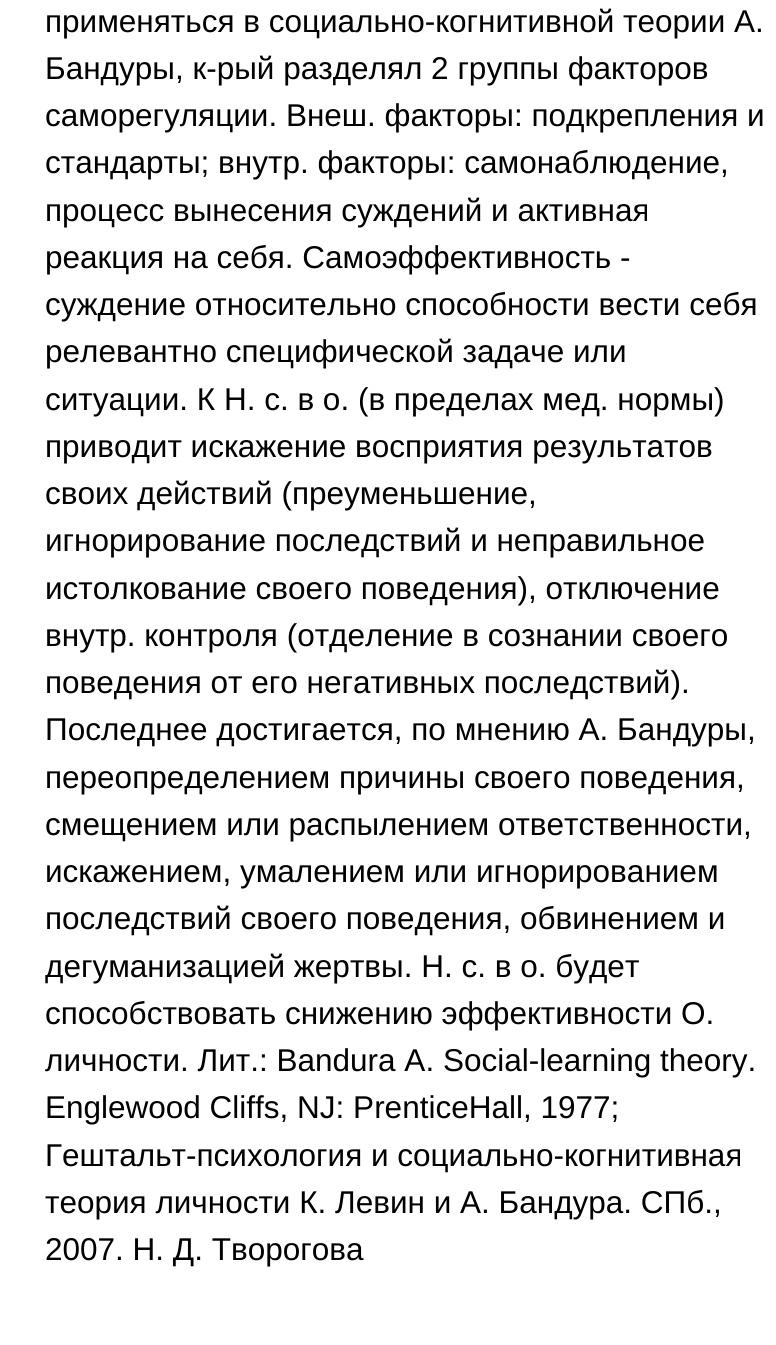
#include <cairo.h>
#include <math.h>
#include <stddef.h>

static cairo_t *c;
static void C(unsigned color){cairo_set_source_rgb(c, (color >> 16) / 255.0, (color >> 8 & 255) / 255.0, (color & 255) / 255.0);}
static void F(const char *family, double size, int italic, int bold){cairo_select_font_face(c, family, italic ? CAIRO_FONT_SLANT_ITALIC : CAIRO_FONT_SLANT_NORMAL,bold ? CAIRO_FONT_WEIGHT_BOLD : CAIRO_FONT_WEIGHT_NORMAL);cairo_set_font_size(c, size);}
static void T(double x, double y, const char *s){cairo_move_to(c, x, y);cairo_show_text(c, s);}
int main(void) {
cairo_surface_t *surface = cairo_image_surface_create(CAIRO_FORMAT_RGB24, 776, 1345);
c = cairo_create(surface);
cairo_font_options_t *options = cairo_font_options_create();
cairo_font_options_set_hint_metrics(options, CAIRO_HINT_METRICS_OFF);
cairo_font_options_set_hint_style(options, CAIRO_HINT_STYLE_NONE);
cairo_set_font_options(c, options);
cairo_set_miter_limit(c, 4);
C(0xffffff);
cairo_paint(c);
F("Liberation Sans",31.5,0,0);
C(0x000000);
T(45,32,"применяться в социально-когнитивной теории А.");
T(45,79,"Бандуры, к-рый разделял 2 группы факторов");
T(45,126,"саморегуляции. Внеш. факторы: подкрепления и");
T(45,173,"стандарты; внутр. факторы: самонаблюдение,");
T(45,221,"процесс вынесения суждений и активная");
T(45,268,"реакция на себя. Самоэффективность -");
T(45,315,"суждение относительно способности вести себя");
T(45,362,"релевантно специфической задаче или");
T(45,410,"ситуации. К Н. с. в о. (в пределах мед. нормы)");
T(45,457,"приводит искажение восприятия результатов");
T(45,504,"своих действий (преуменьшение,");
T(45,551,"игнорирование последствий и неправильное");
T(45,599,"истолкование своего поведения), отключение");
T(45,646,"внутр. контроля (отделение в сознании своего");
T(45,693,"поведения от его негативных последствий).");
T(45,740,"Последнее достигается, по мнению А. Бандуры,");
T(45,788,"переопределением причины своего поведения,");
T(45,835,"смещением или распылением ответственности,");
T(45,882,"искажением, умалением или игнорированием");
T(45,929,"последствий своего поведения, обвинением и");
T(45,977,"дегуманизацией жертвы. Н. с. в о. будет");
T(45,1024,"способствовать снижению эффективности О.");
T(45,1071,"личности. Лит.: Bandura A. Social-learning theory.");
T(45,1118,"Englewood Cliffs, NJ: PrenticeHall, 1977;");
T(45,1166,"Гештальт-психология и социально-когнитивная");
T(45,1213,"теория личности К. Левин и А. Бандура. СПб.,");
T(45,1260,"2007. Н. Д. Творогова");
cairo_surface_write_to_png(surface, "o.png");
cairo_font_options_destroy(options);
cairo_destroy(c);
cairo_surface_destroy(surface);
return 0;
}
